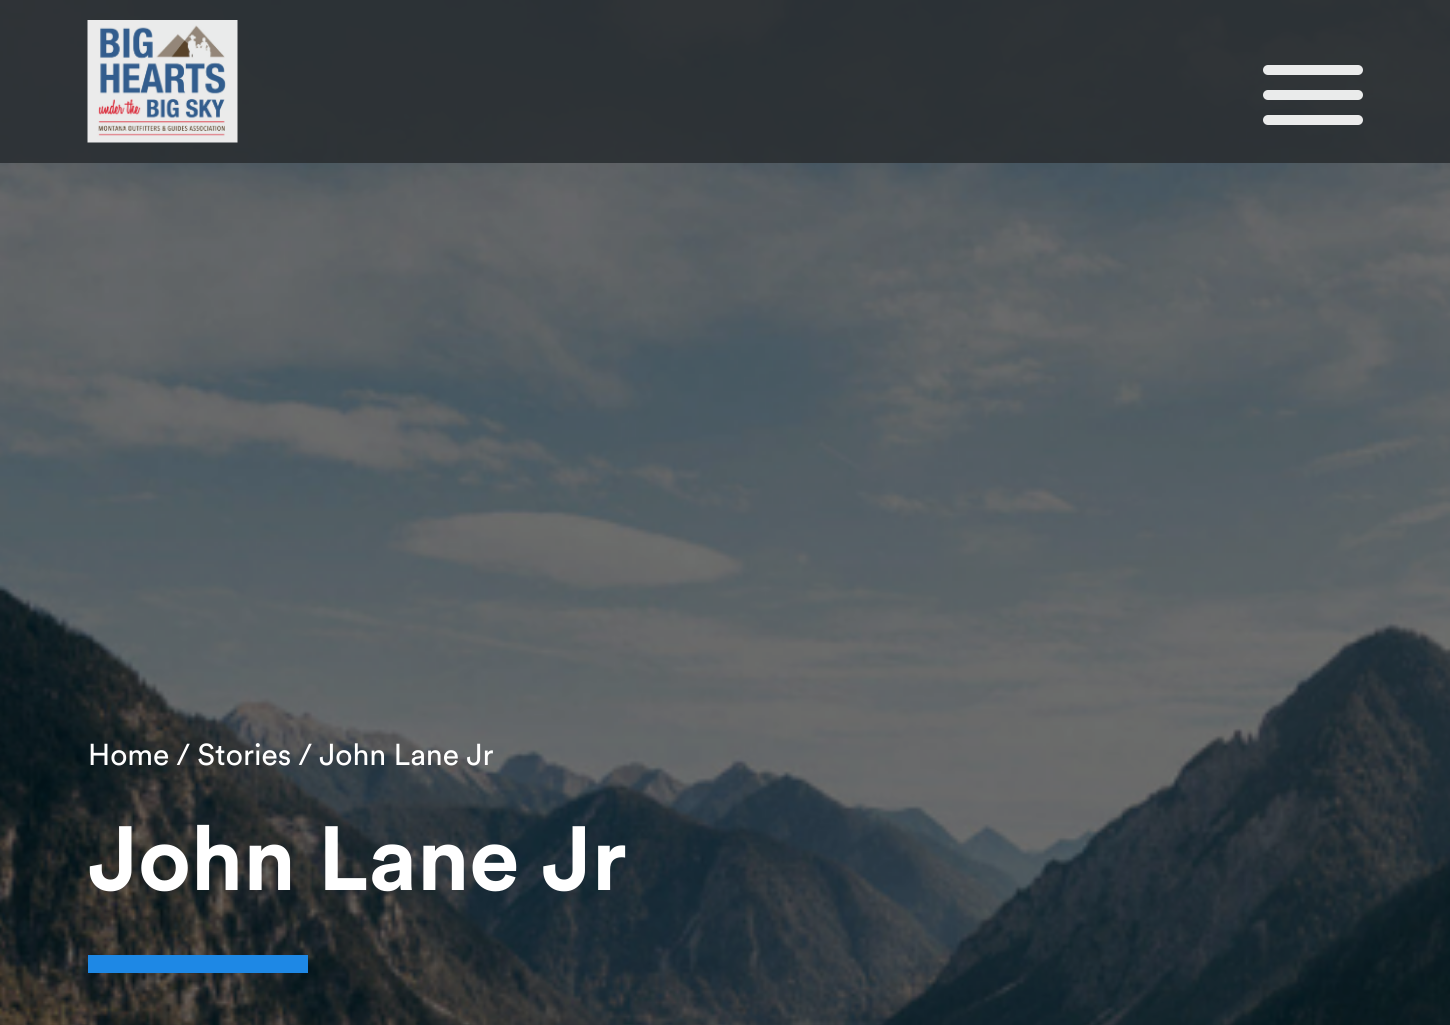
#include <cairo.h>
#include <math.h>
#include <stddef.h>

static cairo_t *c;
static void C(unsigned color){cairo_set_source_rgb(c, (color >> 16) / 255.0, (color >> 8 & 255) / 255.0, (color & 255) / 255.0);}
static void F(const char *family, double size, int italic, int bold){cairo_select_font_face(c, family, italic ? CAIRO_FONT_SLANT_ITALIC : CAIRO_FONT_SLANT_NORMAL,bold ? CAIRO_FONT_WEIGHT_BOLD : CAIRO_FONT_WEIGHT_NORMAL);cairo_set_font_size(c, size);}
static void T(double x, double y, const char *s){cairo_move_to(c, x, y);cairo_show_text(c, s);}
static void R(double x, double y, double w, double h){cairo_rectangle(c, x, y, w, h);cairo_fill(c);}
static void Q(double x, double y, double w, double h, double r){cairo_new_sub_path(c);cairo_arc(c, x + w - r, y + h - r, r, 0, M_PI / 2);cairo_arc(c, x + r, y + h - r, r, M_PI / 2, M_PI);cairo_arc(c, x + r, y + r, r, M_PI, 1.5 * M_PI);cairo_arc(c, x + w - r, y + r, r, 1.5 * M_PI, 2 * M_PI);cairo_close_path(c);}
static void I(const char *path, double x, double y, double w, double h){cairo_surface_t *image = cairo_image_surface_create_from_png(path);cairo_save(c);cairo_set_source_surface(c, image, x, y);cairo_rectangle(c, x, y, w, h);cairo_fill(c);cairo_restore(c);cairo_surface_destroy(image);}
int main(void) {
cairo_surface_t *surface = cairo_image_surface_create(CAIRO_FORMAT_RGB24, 1450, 1025);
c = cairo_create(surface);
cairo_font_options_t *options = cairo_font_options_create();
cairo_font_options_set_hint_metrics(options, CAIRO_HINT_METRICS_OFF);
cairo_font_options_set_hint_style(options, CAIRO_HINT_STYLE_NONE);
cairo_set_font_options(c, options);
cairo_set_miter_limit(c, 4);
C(0xffffff);
cairo_paint(c);
I("2.png",0,0,1450,1025);
cairo_set_source_rgba(c,0.165,0.184,0.196,0.9);
R(0,0,1450,163);
I("1.png",87,20,151,123);
C(0xeaebeb);
Q(1263,65,100,10,5);
cairo_fill(c);
Q(1263,90,100,10,5);
cairo_fill(c);
cairo_set_source_rgba(c,1,1,1,0.9);
Q(1263,115,100,10,5);
cairo_fill(c);
F("Circular",30,0,0);
C(0xffffff);
T(88,765,"Home / Stories / John Lane Jr");
F("Circular",90,0,1);
T(88,890,"John Lane Jr");
C(0x1e88e5);
R(88,955,220,18);
cairo_surface_write_to_png(surface, "o.png");
cairo_font_options_destroy(options);
cairo_destroy(c);
cairo_surface_destroy(surface);
return 0;
}
